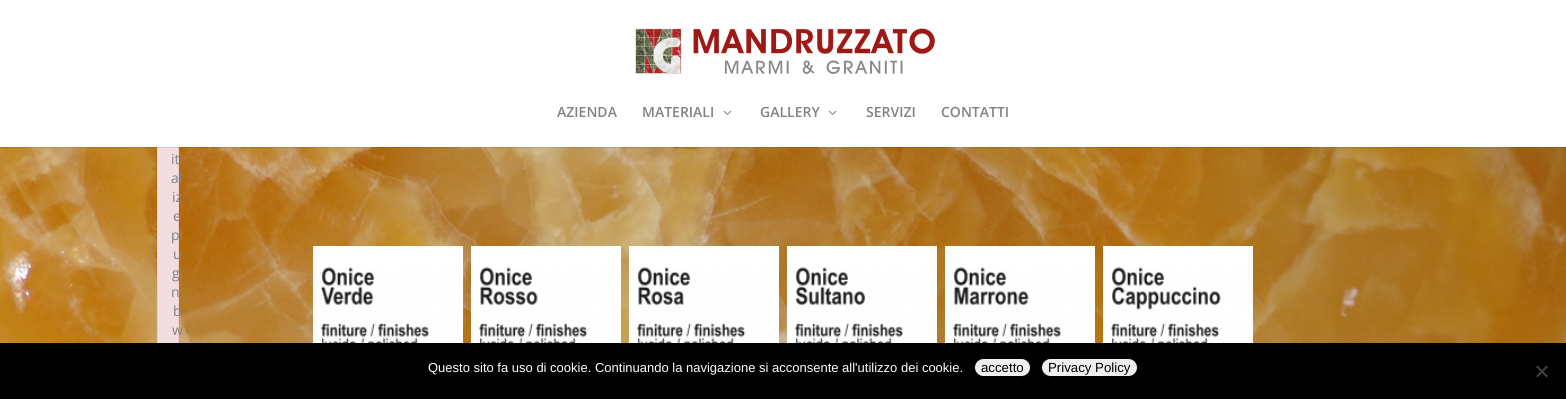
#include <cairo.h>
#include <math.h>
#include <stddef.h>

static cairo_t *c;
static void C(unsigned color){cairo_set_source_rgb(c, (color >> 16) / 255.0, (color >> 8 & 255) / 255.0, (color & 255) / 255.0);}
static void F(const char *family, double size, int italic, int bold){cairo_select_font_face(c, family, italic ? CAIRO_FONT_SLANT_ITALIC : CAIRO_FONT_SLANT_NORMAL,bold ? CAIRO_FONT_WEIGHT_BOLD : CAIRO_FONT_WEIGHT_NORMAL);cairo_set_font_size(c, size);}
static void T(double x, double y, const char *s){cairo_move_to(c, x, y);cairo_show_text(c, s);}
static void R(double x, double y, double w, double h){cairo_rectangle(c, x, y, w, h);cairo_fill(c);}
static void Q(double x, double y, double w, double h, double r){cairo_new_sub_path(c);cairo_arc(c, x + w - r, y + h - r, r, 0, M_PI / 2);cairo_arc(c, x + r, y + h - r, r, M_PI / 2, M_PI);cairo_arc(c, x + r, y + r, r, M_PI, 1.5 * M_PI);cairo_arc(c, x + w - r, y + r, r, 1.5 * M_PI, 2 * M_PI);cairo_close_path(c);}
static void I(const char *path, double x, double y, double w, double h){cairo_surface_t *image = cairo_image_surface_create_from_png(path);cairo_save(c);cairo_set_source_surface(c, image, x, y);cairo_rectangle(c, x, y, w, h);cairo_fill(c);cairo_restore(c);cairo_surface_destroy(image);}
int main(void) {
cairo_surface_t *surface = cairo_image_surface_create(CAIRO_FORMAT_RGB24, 1566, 399);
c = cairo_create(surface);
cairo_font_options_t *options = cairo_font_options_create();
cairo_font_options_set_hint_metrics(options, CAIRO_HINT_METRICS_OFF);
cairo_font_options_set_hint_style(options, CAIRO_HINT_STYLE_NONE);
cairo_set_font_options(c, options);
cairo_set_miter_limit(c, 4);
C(0xffffff);
cairo_paint(c);
I("3.png",0,147,1566,196);
C(0xf2dede);
R(158,147,20,196);
cairo_rectangle(c,157.5,5.5,21,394);
C(0xebccd1);
cairo_set_line_width(c,1);
cairo_stroke(c);
cairo_set_source_rgba(c,0,0,0,0.1);
R(0,147,1566,1);
C(0xffffff);
R(157,5,22,142);
I("1.png",635,28,300,46);
F("Open Sans SemiBold",14,0,0);
C(0x828282);
T(557,117,"AZIENDA");
T(642,117,"MATERIALI");
I("2.png",723,110,9,5);
T(760,117,"GALLERY");
I("2.png",828,110,9,5);
T(866,117,"SERVIZI");
T(941,117,"CONTATTI");
C(0xffffff);
R(313,246,150,97);
I("4.png",320,267,136,76);
R(471,246,150,97);
I("5.png",478,267,136,76);
R(629,246,150,97);
I("6.png",636,267,136,76);
R(787,246,150,97);
I("7.png",794,267,136,76);
R(945,246,150,97);
I("8.png",952,267,136,76);
R(1103,246,150,97);
I("9.png",1110,267,136,76);
F("Open Sans",14,0,0);
C(0x828282);
T(171,164,"iti");
T(171,183,"al");
T(172,202,"iz");
T(173,221,"e");
T(171,240,"pl");
T(173,259,"u");
T(172,278,"gi");
T(171,297,"n:");
T(173,316,"b");
T(172,335,"w");
C(0x000000);
R(0,343,1566,56);
F("Liberation Sans",13,0,0);
C(0xffffff);
T(428,372,"Questo sito fa uso di cookie. Continuando la navigazione si acconsente all'utilizzo dei cookie.");
C(0xefefef);
Q(974.5,358.5,56,18,9);
cairo_fill_preserve(c);
C(0x000000);
cairo_stroke(c);
F("Liberation Sans",13.25,0,0);
T(981,372,"accetto");
C(0xefefef);
Q(1041.5,358.5,96,18,9);
cairo_fill_preserve(c);
C(0x000000);
cairo_stroke(c);
T(1048,372,"Privacy Policy");
C(0x404040);
cairo_new_path(c);
cairo_move_to(c,1546.5,365.5);
cairo_line_to(c,1548,367);
cairo_line_to(c,1537.5,377.5);
cairo_line_to(c,1536,376);
cairo_close_path(c);
cairo_fill(c);
cairo_new_path(c);
cairo_move_to(c,1536,367);
cairo_line_to(c,1537.5,365.5);
cairo_line_to(c,1548,376);
cairo_line_to(c,1546.5,377.5);
cairo_close_path(c);
cairo_fill(c);
cairo_surface_write_to_png(surface, "o.png");
cairo_font_options_destroy(options);
cairo_destroy(c);
cairo_surface_destroy(surface);
return 0;
}
